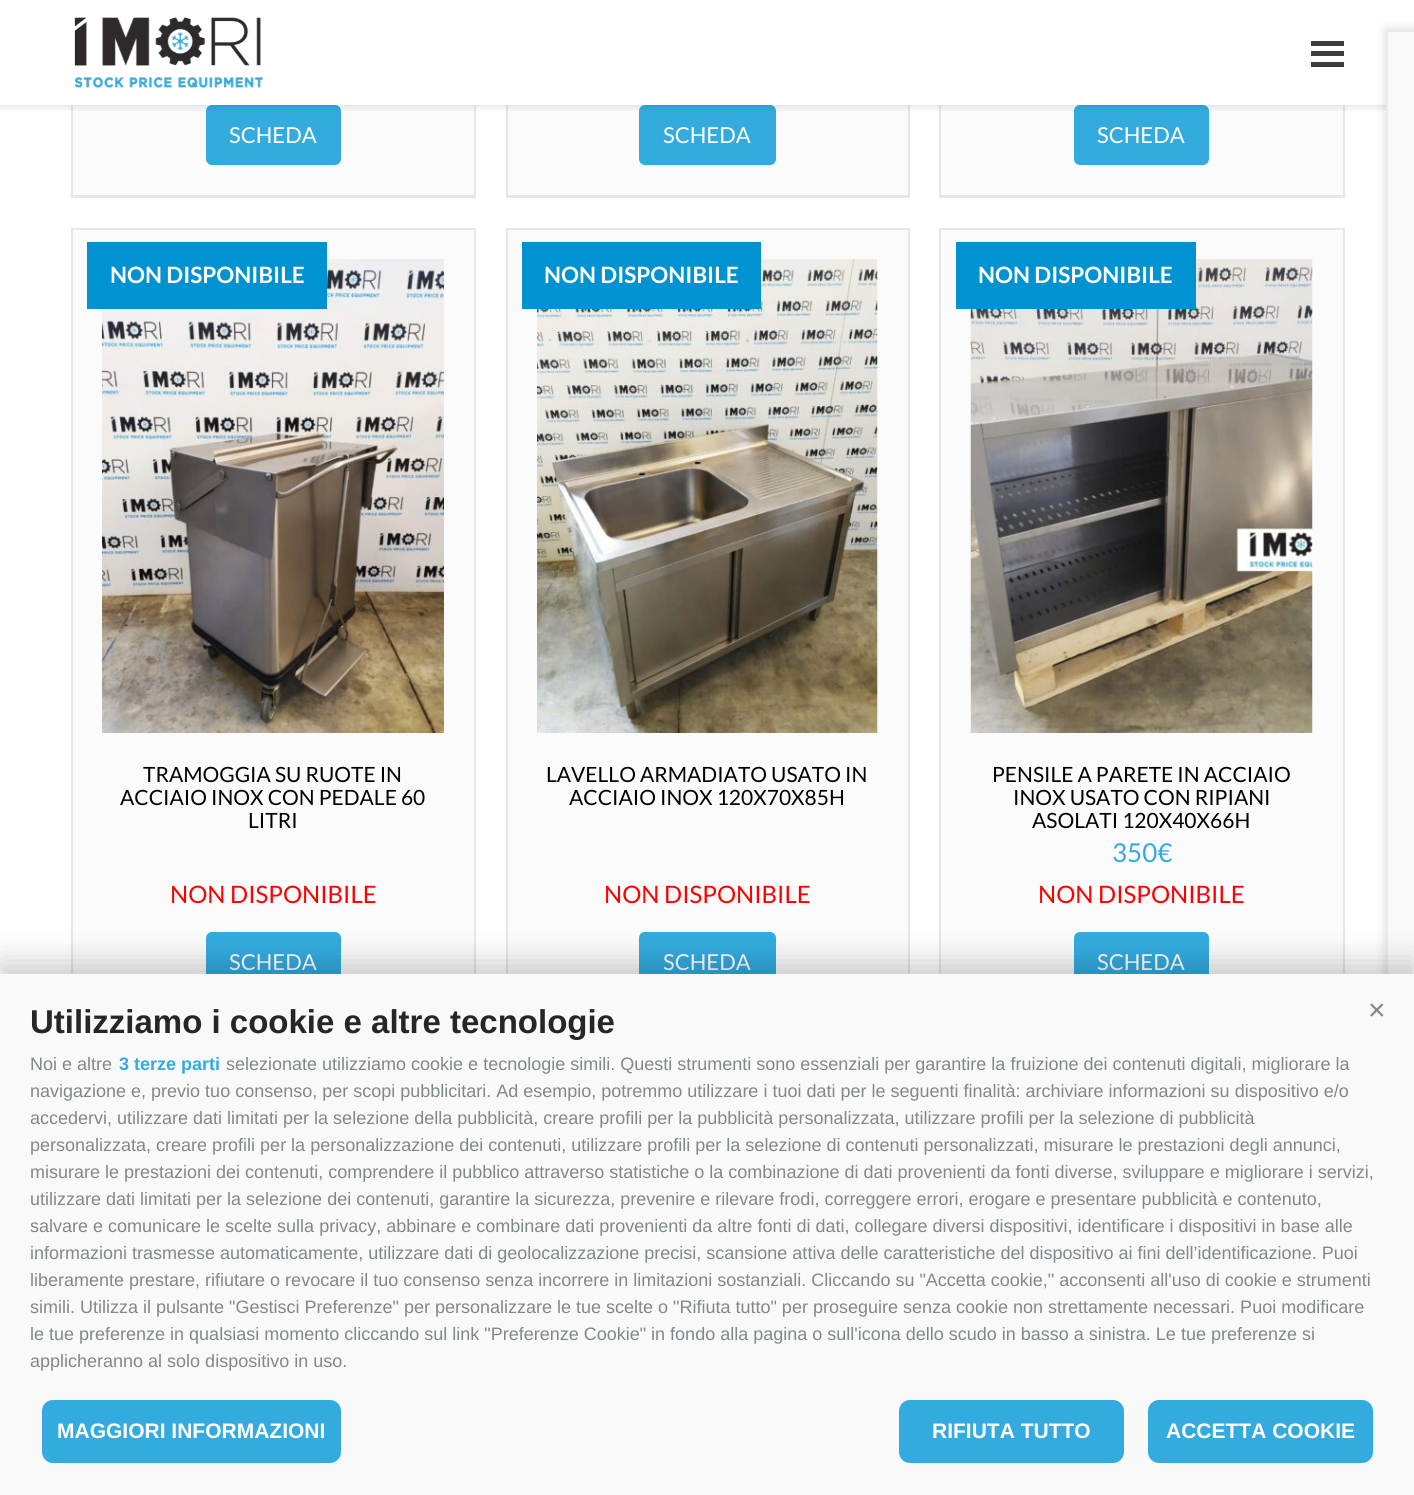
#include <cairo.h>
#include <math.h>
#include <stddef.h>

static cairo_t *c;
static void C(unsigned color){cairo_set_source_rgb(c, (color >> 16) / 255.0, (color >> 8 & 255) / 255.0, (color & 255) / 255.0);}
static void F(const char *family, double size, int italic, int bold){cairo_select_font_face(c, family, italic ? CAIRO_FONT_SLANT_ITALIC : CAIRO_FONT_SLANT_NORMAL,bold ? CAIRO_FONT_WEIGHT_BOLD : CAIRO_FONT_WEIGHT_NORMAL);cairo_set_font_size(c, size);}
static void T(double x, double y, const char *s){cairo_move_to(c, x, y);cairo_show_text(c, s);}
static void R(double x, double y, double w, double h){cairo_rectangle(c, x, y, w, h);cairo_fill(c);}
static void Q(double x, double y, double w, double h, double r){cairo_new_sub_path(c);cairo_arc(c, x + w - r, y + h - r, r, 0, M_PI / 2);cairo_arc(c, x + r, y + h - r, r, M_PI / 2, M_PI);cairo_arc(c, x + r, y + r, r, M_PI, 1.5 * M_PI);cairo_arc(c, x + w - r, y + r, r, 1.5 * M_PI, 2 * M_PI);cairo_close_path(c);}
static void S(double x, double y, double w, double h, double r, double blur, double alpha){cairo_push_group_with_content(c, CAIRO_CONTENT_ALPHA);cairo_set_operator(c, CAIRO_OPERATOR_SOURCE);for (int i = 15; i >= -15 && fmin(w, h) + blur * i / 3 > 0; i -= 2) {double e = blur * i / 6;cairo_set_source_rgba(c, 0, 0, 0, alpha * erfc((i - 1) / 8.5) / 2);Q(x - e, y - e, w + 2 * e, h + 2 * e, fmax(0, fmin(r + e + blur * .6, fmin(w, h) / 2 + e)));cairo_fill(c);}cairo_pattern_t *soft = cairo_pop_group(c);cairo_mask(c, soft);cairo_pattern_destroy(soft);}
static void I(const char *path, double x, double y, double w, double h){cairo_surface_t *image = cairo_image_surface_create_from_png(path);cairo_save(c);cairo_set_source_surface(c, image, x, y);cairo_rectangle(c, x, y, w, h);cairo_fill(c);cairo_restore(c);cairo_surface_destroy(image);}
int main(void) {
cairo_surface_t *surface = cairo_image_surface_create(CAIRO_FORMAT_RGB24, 1414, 1495);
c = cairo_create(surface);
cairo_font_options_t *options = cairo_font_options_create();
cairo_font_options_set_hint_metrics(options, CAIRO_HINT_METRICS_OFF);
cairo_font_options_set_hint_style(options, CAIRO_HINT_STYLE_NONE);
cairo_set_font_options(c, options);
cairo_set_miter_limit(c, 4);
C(0xffffff);
cairo_paint(c);
C(0xfbfbfb);
R(73,105,401,90);
C(0xe7e7e7);
R(474,105,2,93);
R(71,195,405,3);
R(71,105,2,93);
C(0x33abdf);
Q(206,105,135,60,6);
cairo_fill(c);
C(0xfbfbfb);
R(508,105,400,90);
C(0xe7e7e7);
R(908,105,2,93);
R(506,195,403,3);
R(506,105,2,93);
C(0x33abdf);
Q(639,105,137,60,6);
cairo_fill(c);
C(0xfbfbfb);
R(941,105,402,90);
C(0xe7e7e7);
R(1343,105,2,93);
R(939,195,405,3);
R(939,105,2,93);
C(0x33abdf);
Q(1074,105,135,60,6);
cairo_fill(c);
cairo_save(c);
cairo_rectangle(c,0,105,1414,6);
cairo_clip(c);
C(0x000000);
S(0,3,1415,105,0,4,.1);
cairo_restore(c);
I("1.png",74,17,190,71);
C(0x3d3d3d);
R(1311,51,33,5);
R(1311,41,33,5);
R(1311,62,33,5);
F("Lato",22,0,0);
C(0xffffff);
T(229,143,"SCHEDA");
T(663,143,"SCHEDA");
T(1097,143,"SCHEDA");
C(0xfbfbfb);
R(73,230,401,744);
C(0xe7e7e7);
R(71,228,405,2);
R(474,228,2,746);
R(71,228,2,746);
I("2.png",102,259,342,474);
C(0x0092d1);
R(87,242,240,67);
F("Lato",22.5,0,1);
C(0xffffff);
T(110,283,"NON DISPONIBILE");
F("Lato",21,0,0);
C(0x000000);
T(143,782,"TRAMOGGIA SU RUOTE IN");
T(120,805,"ACCIAIO INOX CON PEDALE 60");
T(248,828,"LITRI");
F("Lato",24,0,0);
C(0xff0000);
T(170,903,"NON DISPONIBILE");
C(0x33abdf);
Q(206,932,135,60,6);
cairo_fill(c);
F("Lato",22,0,0);
C(0xffffff);
T(229,970,"SCHEDA");
C(0xfbfbfb);
R(508,230,400,744);
C(0xe7e7e7);
R(506,228,403,2);
R(908,228,2,746);
R(506,228,2,746);
I("3.png",537,259,341,474);
C(0x0092d1);
R(522,242,239,67);
F("Lato",22.5,0,1);
C(0xffffff);
T(544,283,"NON DISPONIBILE");
F("Lato",21,0,0);
C(0x000000);
T(546,782,"LAVELLO ARMADIATO USATO IN");
T(569,805,"ACCIAIO INOX 120X70X85H");
F("Lato",24,0,0);
C(0xff0000);
T(604,903,"NON DISPONIBILE");
C(0x33abdf);
Q(639,932,137,60,6);
cairo_fill(c);
F("Lato",22,0,0);
C(0xffffff);
T(663,970,"SCHEDA");
C(0xfbfbfb);
R(941,230,402,744);
C(0xe7e7e7);
R(939,228,405,2);
R(1343,228,2,746);
R(939,228,2,746);
I("4.png",970,259,343,474);
C(0x0092d1);
R(956,242,240,67);
F("Lato",22.5,0,1);
C(0xffffff);
T(978,283,"NON DISPONIBILE");
F("Lato",21,0,0);
C(0x000000);
T(992,782,"PENSILE A PARETE IN ACCIAIO");
T(1013,805,"INOX USATO CON RIPIANI");
T(1032,828,"ASOLATI 120X40X66H");
F("Lato",26,0,0);
C(0x33abdf);
T(1112,862,"350€");
F("Lato",24,0,0);
C(0xff0000);
T(1038,903,"NON DISPONIBILE");
C(0x33abdf);
Q(1074,932,135,60,6);
cairo_fill(c);
F("Lato",22,0,0);
C(0xffffff);
T(1097,970,"SCHEDA");
cairo_save(c);
cairo_set_fill_rule(c,CAIRO_FILL_RULE_EVEN_ODD);
cairo_new_path(c);
cairo_move_to(c,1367,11);
cairo_line_to(c,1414,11);
cairo_line_to(c,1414,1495);
cairo_line_to(c,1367,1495);
cairo_close_path(c);
cairo_move_to(c,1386,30);
cairo_line_to(c,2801,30);
cairo_line_to(c,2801,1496);
cairo_line_to(c,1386,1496);
cairo_close_path(c);
cairo_clip(c);
C(0x000000);
S(1386,30,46,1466,0,6,.15);
cairo_restore(c);
cairo_set_source_rgba(c,0.976,0.976,0.976,0.98);
R(1388,32,26,942);
cairo_rectangle(c,1387,31,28,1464);
C(0xeaeaea);
cairo_stroke(c);
C(0x000000);
S(0,962,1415,522,0,15,.2);
C(0xf9f9f9);
R(0,974,1414,521);
F("Liberation Sans",33,0,1);
C(0x262628);
T(30,1033,"Utilizziamo i cookie e altre tecnologie");
F("Liberation Sans",30,0,0);
C(0x80888c);
T(1368,1020,"×");
F("Liberation Sans",18,0,0);
T(30,1070,"Noi e altre");
F("Liberation Sans",18,0,1);
C(0x33abdf);
T(119,1070,"3 terze parti");
F("Liberation Sans",18,0,0);
C(0x80888c);
T(226,1070,"selezionate utilizziamo cookie e tecnologie simili. Questi strumenti sono essenziali per garantire la fruizione dei contenuti digitali, migliorare la");
T(30,1097,"navigazione e, previo tuo consenso, per scopi pubblicitari. Ad esempio, potremmo utilizzare i tuoi dati per le seguenti finalità: archiviare informazioni su dispositivo e/o");
T(30,1124,"accedervi, utilizzare dati limitati per la selezione della pubblicità, creare profili per la pubblicità personalizzata, utilizzare profili per la selezione di pubblicità");
T(30,1151,"personalizzata, creare profili per la personalizzazione dei contenuti, utilizzare profili per la selezione di contenuti personalizzati, misurare le prestazioni degli annunci,");
T(30,1178,"misurare le prestazioni dei contenuti, comprendere il pubblico attraverso statistiche o la combinazione di dati provenienti da fonti diverse, sviluppare e migliorare i servizi,");
T(30,1205,"utilizzare dati limitati per la selezione dei contenuti, garantire la sicurezza, prevenire e rilevare frodi, correggere errori, erogare e presentare pubblicità e contenuto,");
T(30,1232,"salvare e comunicare le scelte sulla privacy, abbinare e combinare dati provenienti da altre fonti di dati, collegare diversi dispositivi, identificare i dispositivi in base alle");
T(30,1259,"informazioni trasmesse automaticamente, utilizzare dati di geolocalizzazione precisi, scansione attiva delle caratteristiche del dispositivo ai fini dell’identificazione. Puoi");
T(30,1286,"liberamente prestare, rifiutare o revocare il tuo consenso senza incorrere in limitazioni sostanziali. Cliccando su \"Accetta cookie,\" acconsenti all'uso di cookie e strumenti");
T(30,1313,"simili. Utilizza il pulsante \"Gestisci Preferenze\" per personalizzare le tue scelte o \"Rifiuta tutto\" per proseguire senza cookie non strettamente necessari. Puoi modificare");
T(30,1340,"le tue preferenze in qualsiasi momento cliccando sul link \"Preferenze Cookie\" in fondo alla pagina o sull'icona dello scudo in basso a sinistra. Le tue preferenze si");
T(30,1367,"applicheranno al solo dispositivo in uso.");
C(0x33abdf);
Q(42,1400,299,63,11);
cairo_fill(c);
F("Liberation Sans",21,0,1);
C(0xffffff);
T(57,1438,"MAGGIORI INFORMAZIONI");
C(0x33abdf);
Q(899,1400,225,63,11);
cairo_fill(c);
C(0xffffff);
T(932,1438,"RIFIUTA TUTTO");
C(0x33abdf);
Q(1148,1400,225,63,11);
cairo_fill(c);
C(0xffffff);
T(1166,1438,"ACCETTA COOKIE");
cairo_surface_write_to_png(surface, "o.png");
cairo_font_options_destroy(options);
cairo_destroy(c);
cairo_surface_destroy(surface);
return 0;
}
